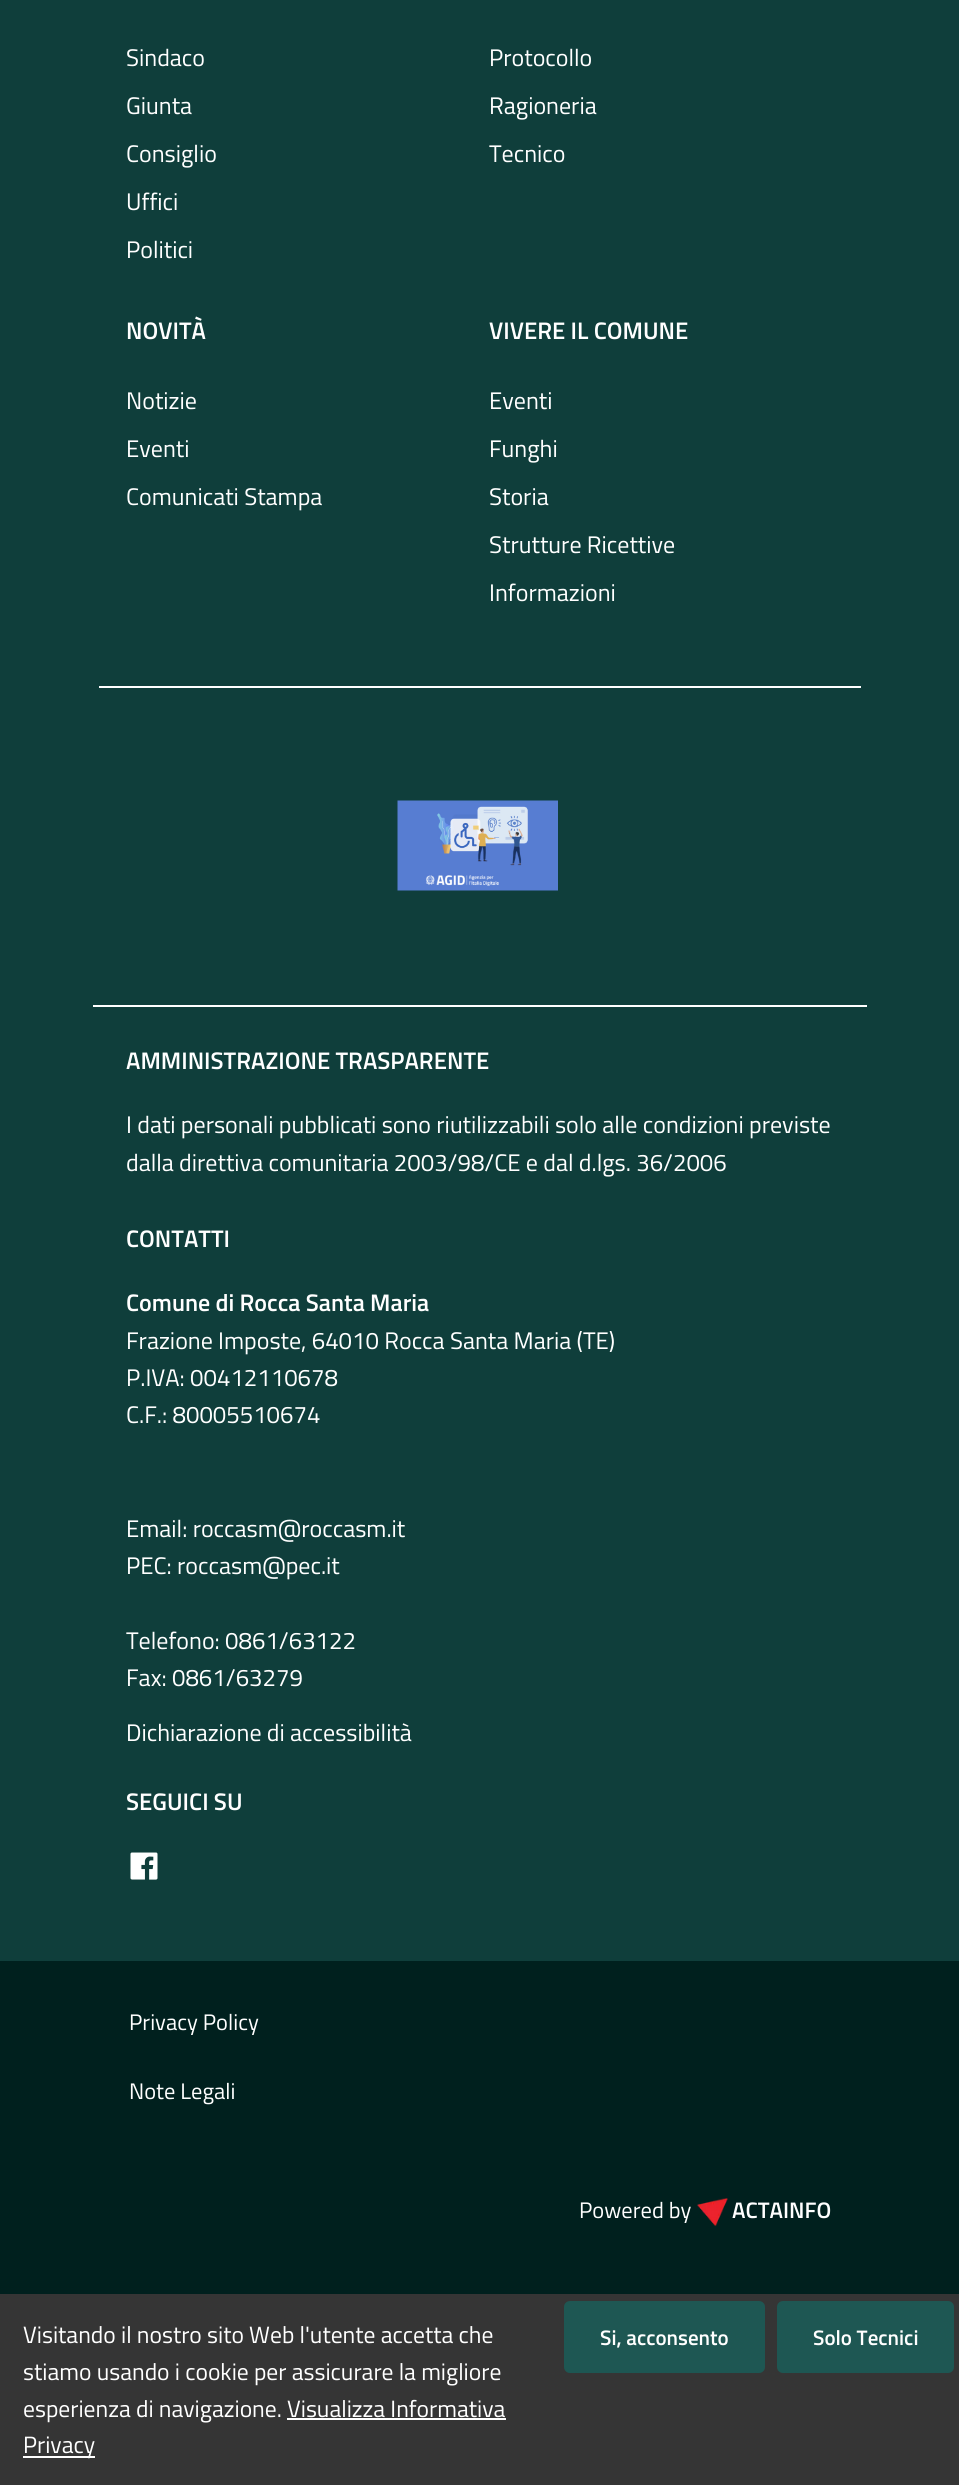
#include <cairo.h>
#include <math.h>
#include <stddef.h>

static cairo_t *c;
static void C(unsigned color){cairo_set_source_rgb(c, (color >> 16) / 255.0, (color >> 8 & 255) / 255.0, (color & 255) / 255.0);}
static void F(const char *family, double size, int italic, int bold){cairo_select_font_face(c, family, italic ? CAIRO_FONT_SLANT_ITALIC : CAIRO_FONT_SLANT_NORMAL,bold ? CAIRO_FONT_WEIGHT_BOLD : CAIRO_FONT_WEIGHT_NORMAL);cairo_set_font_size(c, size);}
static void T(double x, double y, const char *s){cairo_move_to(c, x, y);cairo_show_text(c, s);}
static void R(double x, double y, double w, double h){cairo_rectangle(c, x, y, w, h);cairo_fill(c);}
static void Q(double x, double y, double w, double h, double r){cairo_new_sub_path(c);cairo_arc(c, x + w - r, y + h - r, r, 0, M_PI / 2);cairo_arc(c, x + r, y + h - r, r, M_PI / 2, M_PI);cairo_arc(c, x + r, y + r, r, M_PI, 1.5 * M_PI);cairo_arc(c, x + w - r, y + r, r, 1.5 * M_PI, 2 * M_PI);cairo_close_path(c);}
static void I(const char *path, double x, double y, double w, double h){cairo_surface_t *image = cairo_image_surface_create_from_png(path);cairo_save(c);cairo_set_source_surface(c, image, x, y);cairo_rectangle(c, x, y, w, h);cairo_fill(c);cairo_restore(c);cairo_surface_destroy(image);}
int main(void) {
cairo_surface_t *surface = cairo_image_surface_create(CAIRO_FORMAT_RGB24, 959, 2485);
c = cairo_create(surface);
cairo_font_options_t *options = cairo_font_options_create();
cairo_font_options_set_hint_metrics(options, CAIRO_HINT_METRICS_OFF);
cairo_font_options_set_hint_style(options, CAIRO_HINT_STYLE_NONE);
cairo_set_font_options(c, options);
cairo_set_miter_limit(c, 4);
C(0x0f3e3b);
cairo_paint(c);
F("Titillium Web",24,0,0);
C(0xffffff);
T(126,66,"Sindaco");
T(126,114,"Giunta");
T(126,162,"Consiglio");
T(126,210,"Uffici");
T(126,258,"Politici");
T(489,66,"Protocollo");
T(489,114,"Ragioneria");
T(489,162,"Tecnico");
F("Titillium Web SemiBold",24,0,0);
T(126,339,"NOVITÀ");
F("Titillium Web",24,0,0);
T(126,409,"Notizie");
T(126,457,"Eventi");
T(126,505,"Comunicati Stampa");
F("Titillium Web SemiBold",24,0,0);
T(489,339,"VIVERE IL COMUNE");
F("Titillium Web",24,0,0);
T(489,409,"Eventi");
T(489,457,"Funghi");
T(489,505,"Storia");
T(489,553,"Strutture Ricettive");
T(489,601,"Informazioni");
R(99,686,762,2);
I("1.png",397,800,161,91);
R(93,1005,774,2);
F("Titillium Web SemiBold",24,0,0);
T(126,1069,"AMMINISTRAZIONE TRASPARENTE");
F("Titillium Web",24,0,0);
T(126,1133,"I dati personali pubblicati sono riutilizzabili solo alle condizioni previste");
T(126,1171,"dalla direttiva comunitaria 2003/98/CE e dal d.lgs. 36/2006");
F("Titillium Web SemiBold",24,0,0);
T(126,1247,"CONTATTI");
T(126,1311,"Comune di Rocca Santa Maria");
F("Titillium Web",24,0,0);
T(126,1349,"Frazione Imposte, 64010 Rocca Santa Maria (TE)");
T(126,1386,"P.IVA: 00412110678");
T(126,1423,"C.F.: 80005510674");
T(126,1537,"Email: roccasm@roccasm.it");
T(126,1574,"PEC: roccasm@pec.it");
T(126,1649,"Telefono: 0861/63122");
T(126,1686,"Fax: 0861/63279");
T(126,1741,"Dichiarazione di accessibilità");
F("Titillium Web SemiBold",24,0,0);
T(126,1810,"SEGUICI SU");
I("2.png",130,1852,28,28);
C(0x00201e);
R(0,1961,959,333);
F("Titillium Web",22.5,0,0);
C(0xffffff);
T(129,2030,"Privacy Policy");
T(129,2099,"Note Legali");
T(579,2218,"Powered by");
I("3.png",697,2198,31,29);
F("Titillium Web SemiBold",22.5,0,0);
T(732,2218,"ACTAINFO");
C(0x353535);
R(0,2294,959,191);
F("Titillium Web",23.6,0,0);
C(0xffffff);
T(23,2343,"Visitando il nostro sito Web l'utente accetta che");
T(23,2380,"stiamo usando i cookie per assicurare la migliore");
T(23,2417,"esperienza di navigazione. Visualizza Informativa");
R(23,2456,72,2);
T(23,2453,"Privacy");
R(287,2418,219,2);
C(0x1e5753);
Q(564,2301,201,72,6);
cairo_fill(c);
F("Titillium Web SemiBold",21,0,0);
C(0xffffff);
T(600,2345,"Si, acconsento");
C(0x1e5753);
Q(777,2301,177,72,6);
cairo_fill(c);
C(0xffffff);
T(813,2345,"Solo Tecnici");
cairo_surface_write_to_png(surface, "o.png");
cairo_font_options_destroy(options);
cairo_destroy(c);
cairo_surface_destroy(surface);
return 0;
}
